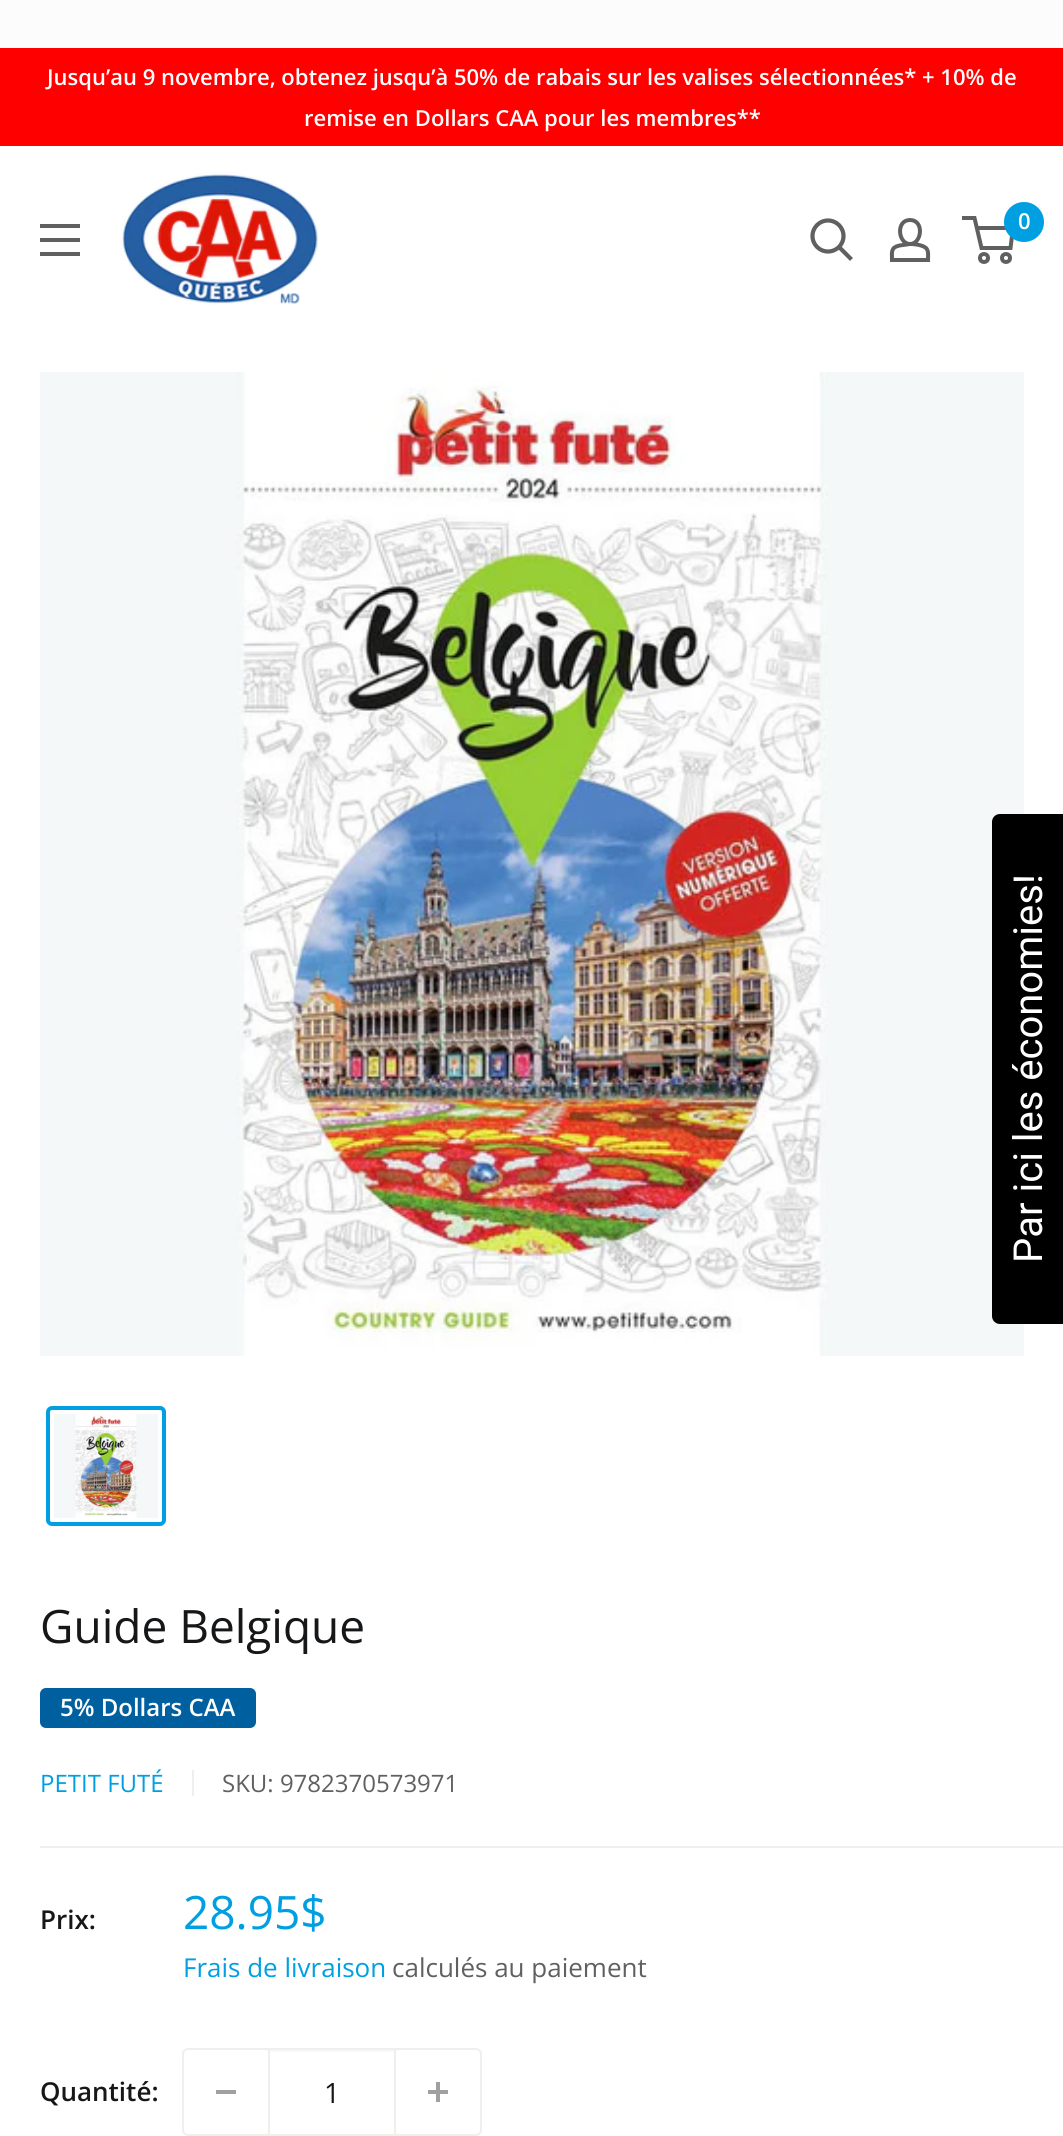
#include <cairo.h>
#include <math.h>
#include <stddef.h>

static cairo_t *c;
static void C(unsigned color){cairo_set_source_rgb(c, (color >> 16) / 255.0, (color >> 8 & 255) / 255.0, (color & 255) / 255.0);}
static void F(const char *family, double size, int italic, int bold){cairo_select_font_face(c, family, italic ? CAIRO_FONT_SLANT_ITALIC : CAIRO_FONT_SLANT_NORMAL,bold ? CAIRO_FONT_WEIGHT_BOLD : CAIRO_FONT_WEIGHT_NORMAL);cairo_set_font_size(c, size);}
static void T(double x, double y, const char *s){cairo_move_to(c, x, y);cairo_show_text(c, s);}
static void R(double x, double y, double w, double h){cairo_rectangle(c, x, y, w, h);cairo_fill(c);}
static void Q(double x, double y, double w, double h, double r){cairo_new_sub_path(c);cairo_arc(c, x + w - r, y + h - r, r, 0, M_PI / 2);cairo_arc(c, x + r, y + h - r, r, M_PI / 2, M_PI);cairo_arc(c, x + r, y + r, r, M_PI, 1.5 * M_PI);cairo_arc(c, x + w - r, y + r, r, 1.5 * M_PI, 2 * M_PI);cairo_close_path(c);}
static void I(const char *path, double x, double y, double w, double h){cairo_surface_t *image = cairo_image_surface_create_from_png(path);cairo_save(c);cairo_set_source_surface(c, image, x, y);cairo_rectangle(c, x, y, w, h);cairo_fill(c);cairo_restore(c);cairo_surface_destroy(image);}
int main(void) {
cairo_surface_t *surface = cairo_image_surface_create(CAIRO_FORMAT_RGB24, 1063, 2136);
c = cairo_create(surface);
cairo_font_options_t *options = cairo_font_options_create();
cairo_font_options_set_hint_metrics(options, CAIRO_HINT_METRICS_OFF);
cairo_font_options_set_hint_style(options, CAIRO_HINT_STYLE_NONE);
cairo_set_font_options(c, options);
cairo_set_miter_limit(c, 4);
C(0xfcfcfc);
cairo_paint(c);
C(0xff0000);
R(0,48,1063,98);
F("Open Sans SemiBold",22,0,0);
C(0xffffff);
T(47,85,"Jusqu’au 9 novembre, obtenez jusqu’à 50% de rabais sur les valises sélectionnées* + 10% de");
T(304,126,"remise en Dollars CAA pour les membres**");
R(0,146,1063,1990);
I("1.png",120,172,199,133);
cairo_new_path(c);
cairo_move_to(c,850,258);
cairo_line_to(c,839.5,247.5);
C(0x606060);
cairo_set_line_width(c,4.2);
cairo_set_line_cap(c,CAIRO_LINE_CAP_SQUARE);
cairo_stroke(c);
cairo_arc(c,828,236,15.5,0,2 * M_PI);
cairo_set_line_cap(c,CAIRO_LINE_CAP_BUTT);
cairo_stroke(c);
cairo_new_path(c);
cairo_move_to(c,910,244);
cairo_curve_to(c,914,244,917.5,244.5,921,245.5);
cairo_curve_to(c,929.5,248,928,252.5,928,260);
cairo_line_to(c,892,260);
cairo_curve_to(c,892,252,890.5,247.5,899.5,245.5);
cairo_close_path(c);
cairo_move_to(c,910,244);
cairo_curve_to(c,898,244,895.5,220,910,220);
cairo_curve_to(c,924.5,220,922,244,910,244);
cairo_close_path(c);
cairo_set_line_width(c,4);
cairo_stroke(c);
cairo_arc(c,984,258,4,0,2 * M_PI);
cairo_stroke(c);
cairo_arc(c,1006,258,4,0,2 * M_PI);
cairo_stroke(c);
cairo_new_path(c);
cairo_move_to(c,976.5,228);
cairo_line_to(c,1013,228);
cairo_line_to(c,1010.5,248);
cairo_line_to(c,981.5,248);
cairo_line_to(c,974.5,218);
cairo_line_to(c,962,218);
cairo_stroke(c);
C(0x009fe1);
cairo_arc(c,1024,222,20,0,2 * M_PI);
cairo_fill(c);
C(0xffffff);
T(1018,229,"0");
C(0x606060);
cairo_set_fill_rule(c,CAIRO_FILL_RULE_EVEN_ODD);
cairo_new_path(c);
cairo_move_to(c,40,252);
cairo_line_to(c,80,252);
cairo_line_to(c,80,256);
cairo_line_to(c,40,256);
cairo_close_path(c);
cairo_move_to(c,40,224);
cairo_line_to(c,80,224);
cairo_line_to(c,80,228);
cairo_line_to(c,40,228);
cairo_close_path(c);
cairo_move_to(c,40,238);
cairo_line_to(c,80,238);
cairo_line_to(c,80,242);
cairo_line_to(c,40,242);
cairo_close_path(c);
cairo_fill(c);
I("2.png",40,372,984,984);
C(0x000000);
cairo_new_path(c);
cairo_move_to(c,1000,814);
cairo_line_to(c,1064,814);
cairo_line_to(c,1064,1324);
cairo_line_to(c,1000,1324);
cairo_curve_to(c,995.5,1324,992,1320.5,992,1316);
cairo_line_to(c,992,822);
cairo_curve_to(c,992,817.5,995.5,814,1000,814);
cairo_close_path(c);
cairo_fill(c);
F("Roboto",40,0,0);
C(0xffffff);
cairo_save(c);
cairo_translate(c,1042,1263);
cairo_rotate(c,-90 * M_PI / 180);
T(0,0,"Par ici les économies!");
cairo_restore(c);
Q(48,1408,116,116,4);
C(0x009fe1);
cairo_stroke(c);
I("3.png",54,1414,104,104);
F("Open Sans",46,0,0);
C(0x161719);
T(40,1643,"Guide Belgique");
C(0x00609f);
Q(40,1688,216,40,6);
cairo_fill(c);
F("Open Sans SemiBold",24,0,0);
C(0xffffff);
T(60,1716,"5% Dollars CAA");
F("Open Sans",24,0,0);
C(0x009fe1);
T(40,1792,"PETIT FUTÉ");
C(0xf1eeee);
R(192,1770,2,26);
C(0x606060);
T(222,1792,"SKU: 9782370573971");
C(0xf1eeee);
R(40,1846,1023,2);
F("Open Sans SemiBold",26,0,0);
C(0x161719);
T(40,1929,"Prix:");
F("Open Sans",46,0,0);
C(0x009fe1);
T(183,1929,"28.95$");
F("Open Sans",26,0,0);
T(183,1977,"Frais de livraison");
C(0x606060);
T(392,1977,"calculés au paiement");
F("Open Sans SemiBold",26,0,0);
C(0x161719);
T(40,2101,"Quantité:");
Q(183,2049,298,86,5);
C(0xf1eeee);
cairo_set_line_width(c,2);
cairo_stroke(c);
C(0xa0a0a0);
R(216,2090,20,4);
C(0xf9f8f8);
R(270,2050,124,2);
C(0xf1eeee);
R(394,2050,2,84);
R(268,2050,2,84);
F("Open Sans",28,0,0);
C(0x161719);
T(324,2103,"1");
I("4.png",428,2082,20,20);
cairo_surface_write_to_png(surface, "o.png");
cairo_font_options_destroy(options);
cairo_destroy(c);
cairo_surface_destroy(surface);
return 0;
}
